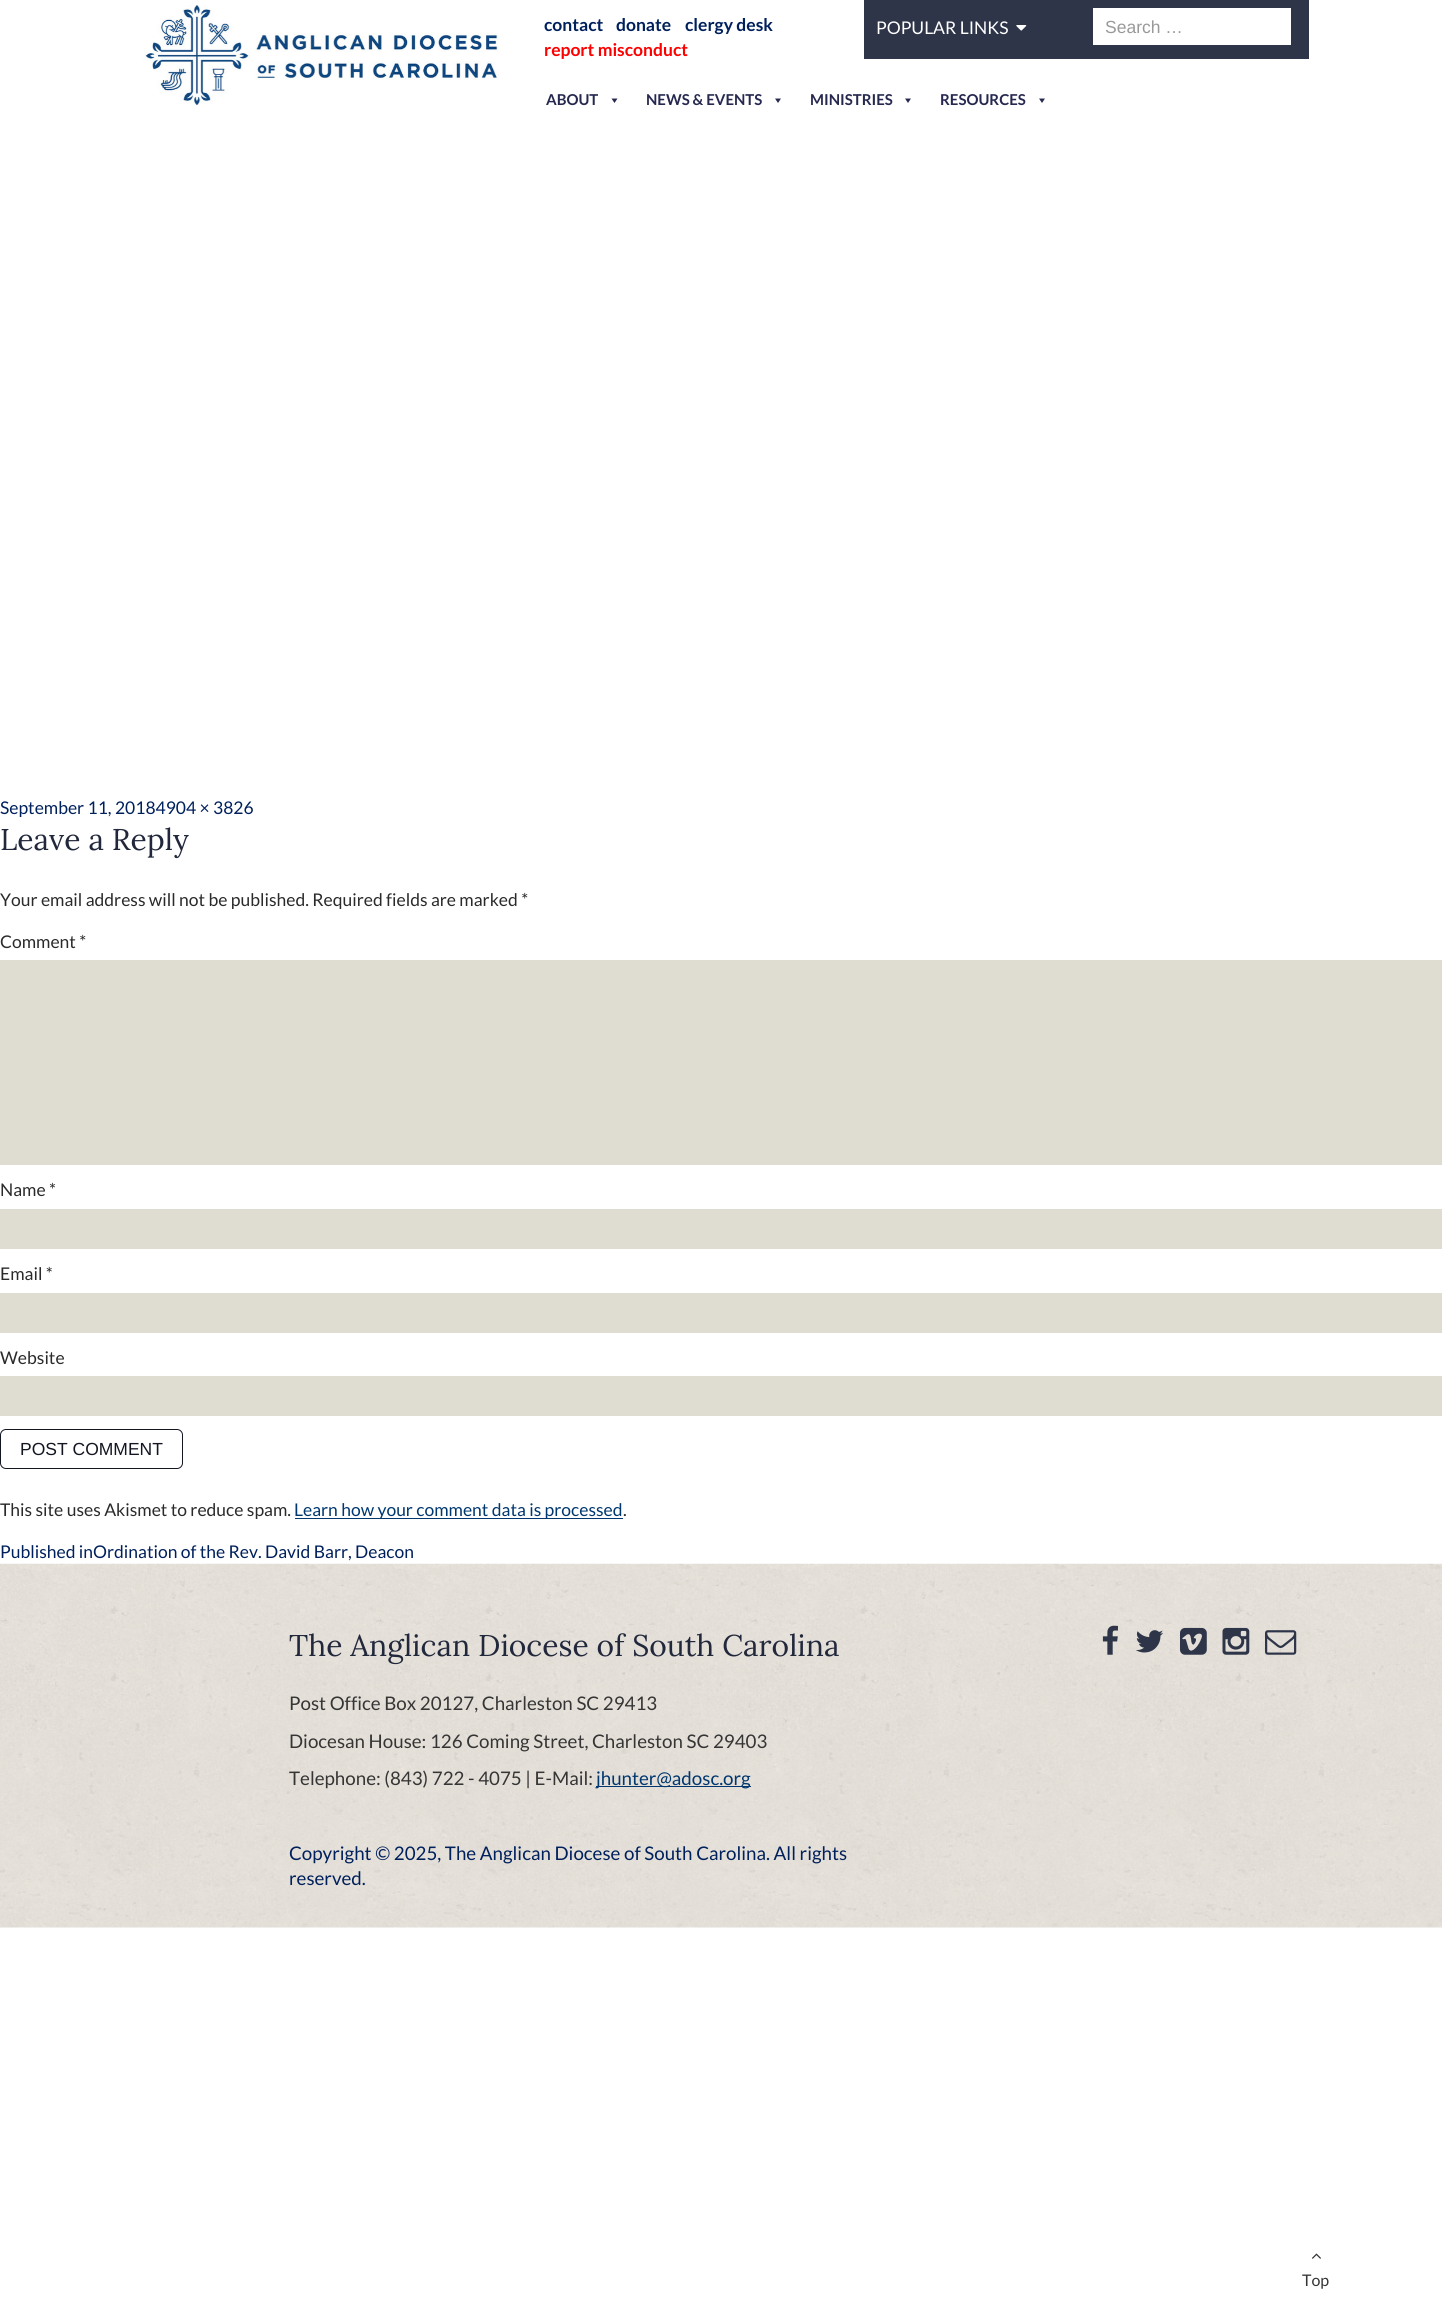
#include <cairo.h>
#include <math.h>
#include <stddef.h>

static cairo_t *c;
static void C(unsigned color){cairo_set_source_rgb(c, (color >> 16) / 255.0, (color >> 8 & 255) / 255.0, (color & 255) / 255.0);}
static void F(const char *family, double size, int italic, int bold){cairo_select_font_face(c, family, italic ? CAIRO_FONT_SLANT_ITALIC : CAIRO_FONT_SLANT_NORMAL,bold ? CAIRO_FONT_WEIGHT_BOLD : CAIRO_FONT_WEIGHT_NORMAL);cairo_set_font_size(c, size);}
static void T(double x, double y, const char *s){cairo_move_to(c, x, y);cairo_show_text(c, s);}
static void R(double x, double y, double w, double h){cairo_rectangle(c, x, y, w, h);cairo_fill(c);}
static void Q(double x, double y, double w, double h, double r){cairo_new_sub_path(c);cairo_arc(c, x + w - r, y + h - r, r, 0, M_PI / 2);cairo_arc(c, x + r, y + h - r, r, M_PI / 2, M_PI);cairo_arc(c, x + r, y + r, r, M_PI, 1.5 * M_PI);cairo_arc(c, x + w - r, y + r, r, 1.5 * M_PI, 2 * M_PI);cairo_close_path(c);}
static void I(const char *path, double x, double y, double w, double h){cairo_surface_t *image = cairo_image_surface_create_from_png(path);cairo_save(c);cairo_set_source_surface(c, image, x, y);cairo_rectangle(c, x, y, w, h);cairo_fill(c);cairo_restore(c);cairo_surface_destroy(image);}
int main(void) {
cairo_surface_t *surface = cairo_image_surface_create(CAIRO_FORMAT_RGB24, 1442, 2312);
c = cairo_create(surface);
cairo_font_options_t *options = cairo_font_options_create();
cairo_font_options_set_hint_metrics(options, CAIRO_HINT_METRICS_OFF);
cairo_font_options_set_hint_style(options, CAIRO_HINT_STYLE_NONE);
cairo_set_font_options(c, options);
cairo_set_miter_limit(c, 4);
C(0xffffff);
cairo_paint(c);
I("1.png",143,5,356,100);
F("Lato",17.5,0,1);
C(0x00205c);
T(544,31,"contact");
T(616,31,"donate");
T(685,31,"clergy desk");
C(0xff0000);
T(544,56,"report misconduct");
C(0x2e3549);
R(864,0,445,59);
F("Lato",17.5,0,0);
C(0xffffff);
T(876,34,"POPULAR LINKS");
I("2.png",1016,25,11,6);
R(1093,8,198,37);
F("Liberation Sans",17.5,0,0);
C(0x999999);
T(1105,33,"Search …");
F("Lato",15,0,1);
C(0x26284f);
T(546,105,"ABOUT");
cairo_new_path(c);
cairo_move_to(c,617.5,98.5);
cairo_line_to(c,614.5,103);
cairo_line_to(c,611.5,98.5);
cairo_close_path(c);
cairo_fill(c);
T(646,105,"NEWS & EVENTS");
cairo_new_path(c);
cairo_move_to(c,781,98.5);
cairo_line_to(c,778,103);
cairo_line_to(c,775,98.5);
cairo_close_path(c);
cairo_fill(c);
T(810,105,"MINISTRIES");
cairo_new_path(c);
cairo_move_to(c,911,98.5);
cairo_line_to(c,908,103);
cairo_line_to(c,905,98.5);
cairo_close_path(c);
cairo_fill(c);
T(940,105,"RESOURCES");
cairo_new_path(c);
cairo_move_to(c,1045,98.5);
cairo_line_to(c,1042,103);
cairo_line_to(c,1039,98.5);
cairo_close_path(c);
cairo_fill(c);
F("Lato",17.5,0,0);
C(0x00205c);
T(0,814,"September 11, 20184904 × 3826");
F("Lora",30,0,0);
C(0x22283c);
T(0,850,"Leave a Reply");
F("Lato",17.5,0,0);
C(0x2a2a2a);
T(0,906,"Your email address will not be published. Required fields are marked *");
T(0,948,"Comment *");
C(0xdfddd2);
R(0,960,1442,205);
C(0x2a2a2a);
T(0,1196,"Name *");
C(0xdfddd2);
R(0,1209,1442,40);
C(0x2a2a2a);
T(0,1280,"Email *");
C(0xdfddd2);
R(0,1293,1442,40);
C(0x2a2a2a);
T(0,1364,"Website");
C(0xdfddd2);
R(0,1376,1442,40);
Q(.5,1429.5,182,39,5.5);
C(0x131621);
cairo_set_line_width(c,1);
cairo_stroke(c);
F("Liberation Sans",17.5,0,0);
T(20,1455,"POST COMMENT");
F("Lato",17.5,0,0);
C(0x2a2a2a);
T(0,1516,"This site uses Akismet to reduce spam.");
C(0x00376f);
R(295,1518,328,1);
T(294,1516,"Learn how your comment data is processed");
C(0x2a2a2a);
T(623,1516,".");
C(0x00205c);
T(0,1558,"Published inOrdination of the Rev. David Barr, Deacon");
I("3.png",0,1563,1442,365);
F("Lora",30,0,0);
C(0x22283c);
T(289,1656,"The Anglican Diocese of South Carolina");
F("Lato",18.75,0,0);
C(0x353535);
T(289,1710,"Post Office Box 20127, Charleston SC 29413");
T(289,1748,"Diocesan House: 126 Coming Street, Charleston SC 29403");
T(289,1785,"Telephone: (843) 722 - 4075 | E-Mail:");
C(0x00376f);
R(596,1786,155,1);
T(596,1785,"jhunter@adosc.org");
C(0x00205c);
T(289,1860,"Copyright © 2025, The Anglican Diocese of South Carolina. All rights");
T(289,1885,"reserved.");
I("4.png",1102,1625,16,30);
I("5.png",1136,1630,27,23);
I("6.png",1180,1627,27,28);
I("7.png",1222,1627,28,28);
I("8.png",1265,1630,32,25);
I("9.png",1312,2253,9,6);
F("Lato",16,0,0);
C(0x353535);
T(1302,2286,"Top");
cairo_surface_write_to_png(surface, "o.png");
cairo_font_options_destroy(options);
cairo_destroy(c);
cairo_surface_destroy(surface);
return 0;
}
